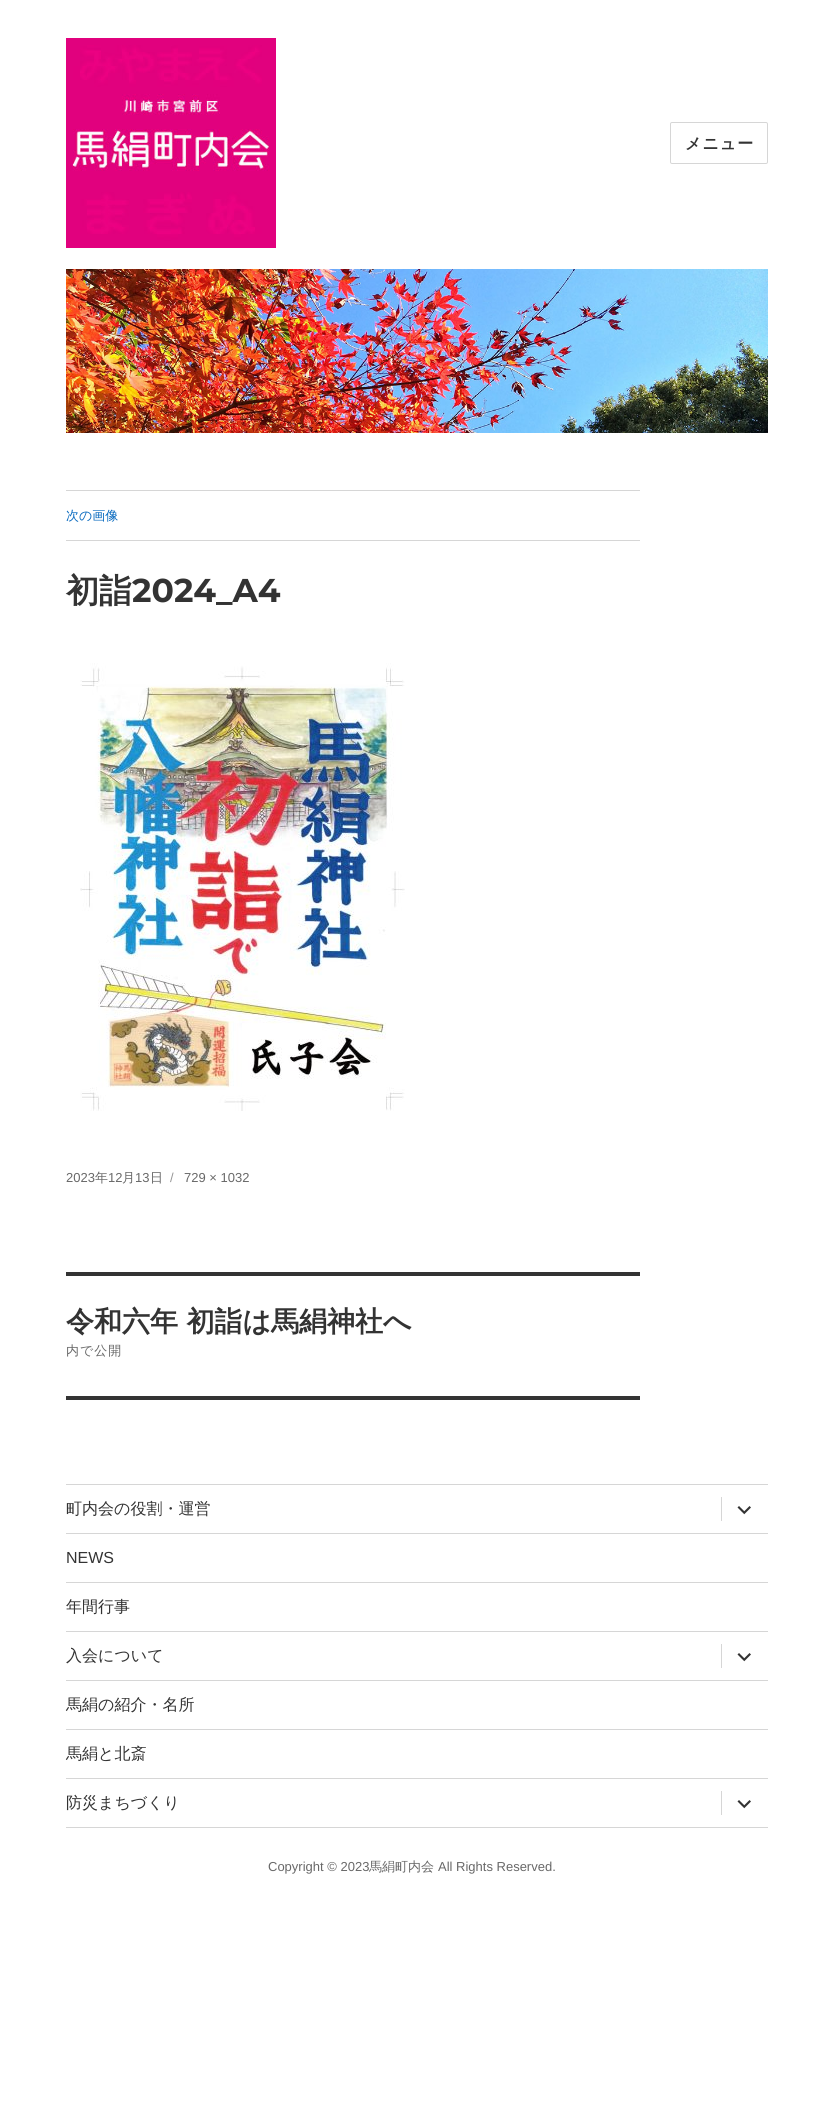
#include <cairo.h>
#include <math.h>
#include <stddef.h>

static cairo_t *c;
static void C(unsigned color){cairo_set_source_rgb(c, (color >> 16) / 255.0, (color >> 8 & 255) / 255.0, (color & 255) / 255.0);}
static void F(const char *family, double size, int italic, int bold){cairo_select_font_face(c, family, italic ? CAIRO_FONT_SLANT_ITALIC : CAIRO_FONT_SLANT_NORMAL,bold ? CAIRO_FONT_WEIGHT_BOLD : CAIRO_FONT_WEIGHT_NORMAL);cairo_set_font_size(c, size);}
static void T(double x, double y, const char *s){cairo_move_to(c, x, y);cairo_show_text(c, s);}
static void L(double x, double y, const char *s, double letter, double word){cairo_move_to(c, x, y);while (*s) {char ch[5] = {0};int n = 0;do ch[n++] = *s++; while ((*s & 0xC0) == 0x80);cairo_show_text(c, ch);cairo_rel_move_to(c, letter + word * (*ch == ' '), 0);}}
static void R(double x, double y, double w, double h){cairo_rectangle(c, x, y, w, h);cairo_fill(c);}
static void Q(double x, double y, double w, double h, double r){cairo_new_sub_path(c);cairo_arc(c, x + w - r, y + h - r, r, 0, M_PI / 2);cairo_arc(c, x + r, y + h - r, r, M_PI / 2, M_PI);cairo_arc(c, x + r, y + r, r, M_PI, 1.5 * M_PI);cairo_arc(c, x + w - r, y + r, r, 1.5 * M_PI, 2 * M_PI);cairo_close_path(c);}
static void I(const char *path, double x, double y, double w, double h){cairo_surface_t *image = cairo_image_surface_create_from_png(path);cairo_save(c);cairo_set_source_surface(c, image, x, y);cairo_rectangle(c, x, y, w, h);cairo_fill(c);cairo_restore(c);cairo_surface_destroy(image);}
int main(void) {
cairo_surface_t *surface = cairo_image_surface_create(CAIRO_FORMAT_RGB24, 834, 2119);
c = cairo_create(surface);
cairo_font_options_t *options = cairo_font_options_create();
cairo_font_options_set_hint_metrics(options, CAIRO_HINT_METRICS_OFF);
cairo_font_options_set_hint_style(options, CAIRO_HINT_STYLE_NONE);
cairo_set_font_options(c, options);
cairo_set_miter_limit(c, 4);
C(0xffffff);
cairo_paint(c);
I("1.png",66,38,210,210);
Q(670.5,122.5,97,41,1.5);
C(0xd6d6d6);
cairo_set_line_width(c,1);
cairo_stroke(c);
F("WenQuanYi Zen Hei",16,0,1);
C(0x333333);
L(685,149,"メニュー",1,0);
I("2.png",66,269,702,164);
C(0xd6d6d6);
R(66,490,574,1);
R(66,540,574,1);
F("WenQuanYi Zen Hei Medium",13,0,0);
C(0x096abf);
T(66,520,"次の画像");
F("WenQuanYi Zen Hei",33,0,1);
C(0x333333);
T(66,602,"初詣");
F("Montserrat",33,0,1);
T(132,602,"2024_A4");
I("3.png",80,663,325,448);
F("Liberation Sans",13,0,0);
C(0x686868);
T(66,1182,"2023");
F("WenQuanYi Zen Hei Medium",13,0,0);
T(95,1182,"年");
F("Liberation Sans",13,0,0);
T(108,1182,"12");
F("WenQuanYi Zen Hei Medium",13,0,0);
T(122,1182,"月");
F("Liberation Sans",13,0,0);
T(135,1182,"13");
F("WenQuanYi Zen Hei Medium",13,0,0);
T(150,1182,"日");
F("Liberation Sans",13,0,0);
C(0x959595);
T(170,1182,"/");
C(0x686868);
T(184,1182,"729 × 1032");
C(0x333333);
R(66,1272,574,4);
R(66,1396,574,4);
F("WenQuanYi Zen Hei",28,0,1);
T(66,1331,"令和六年 初詣は馬絹神社へ");
F("WenQuanYi Zen Hei Medium",13,0,0);
C(0x686868);
L(66,1355,"内で公開",1,0);
C(0xd6d6d6);
R(66,1827,702,1);
R(66,1484,702,1);
F("WenQuanYi Zen Hei Medium",16,0,0);
C(0x333333);
T(66,1514,"町内会の役割・運営");
C(0xd6d6d6);
R(721,1497,1,24);
I("4.png",737,1506,14,9);
R(66,1533,702,1);
F("Liberation Sans",16,0,0);
C(0x333333);
T(66,1563,"NEWS");
C(0xd6d6d6);
R(66,1582,702,1);
F("WenQuanYi Zen Hei Medium",16,0,0);
C(0x333333);
T(66,1612,"年間行事");
C(0xd6d6d6);
R(66,1631,702,1);
C(0x333333);
T(66,1661,"入会について");
C(0xd6d6d6);
R(721,1644,1,24);
I("4.png",737,1653,14,9);
R(66,1680,702,1);
C(0x333333);
T(66,1710,"馬絹の紹介・名所");
C(0xd6d6d6);
R(66,1729,702,1);
C(0x333333);
T(66,1759,"馬絹と北斎");
C(0xd6d6d6);
R(66,1778,702,1);
C(0x333333);
T(66,1808,"防災まちづくり");
C(0xd6d6d6);
R(721,1791,1,24);
I("4.png",737,1800,14,9);
F("Liberation Sans",13,0,0);
C(0x686868);
T(268,1871,"Copyright © 2023");
F("WenQuanYi Zen Hei Medium",13,0,0);
T(369,1871,"馬絹町内会");
F("Liberation Sans",13,0,0);
T(438,1871,"All Rights Reserved.");
cairo_surface_write_to_png(surface, "o.png");
cairo_font_options_destroy(options);
cairo_destroy(c);
cairo_surface_destroy(surface);
return 0;
}
